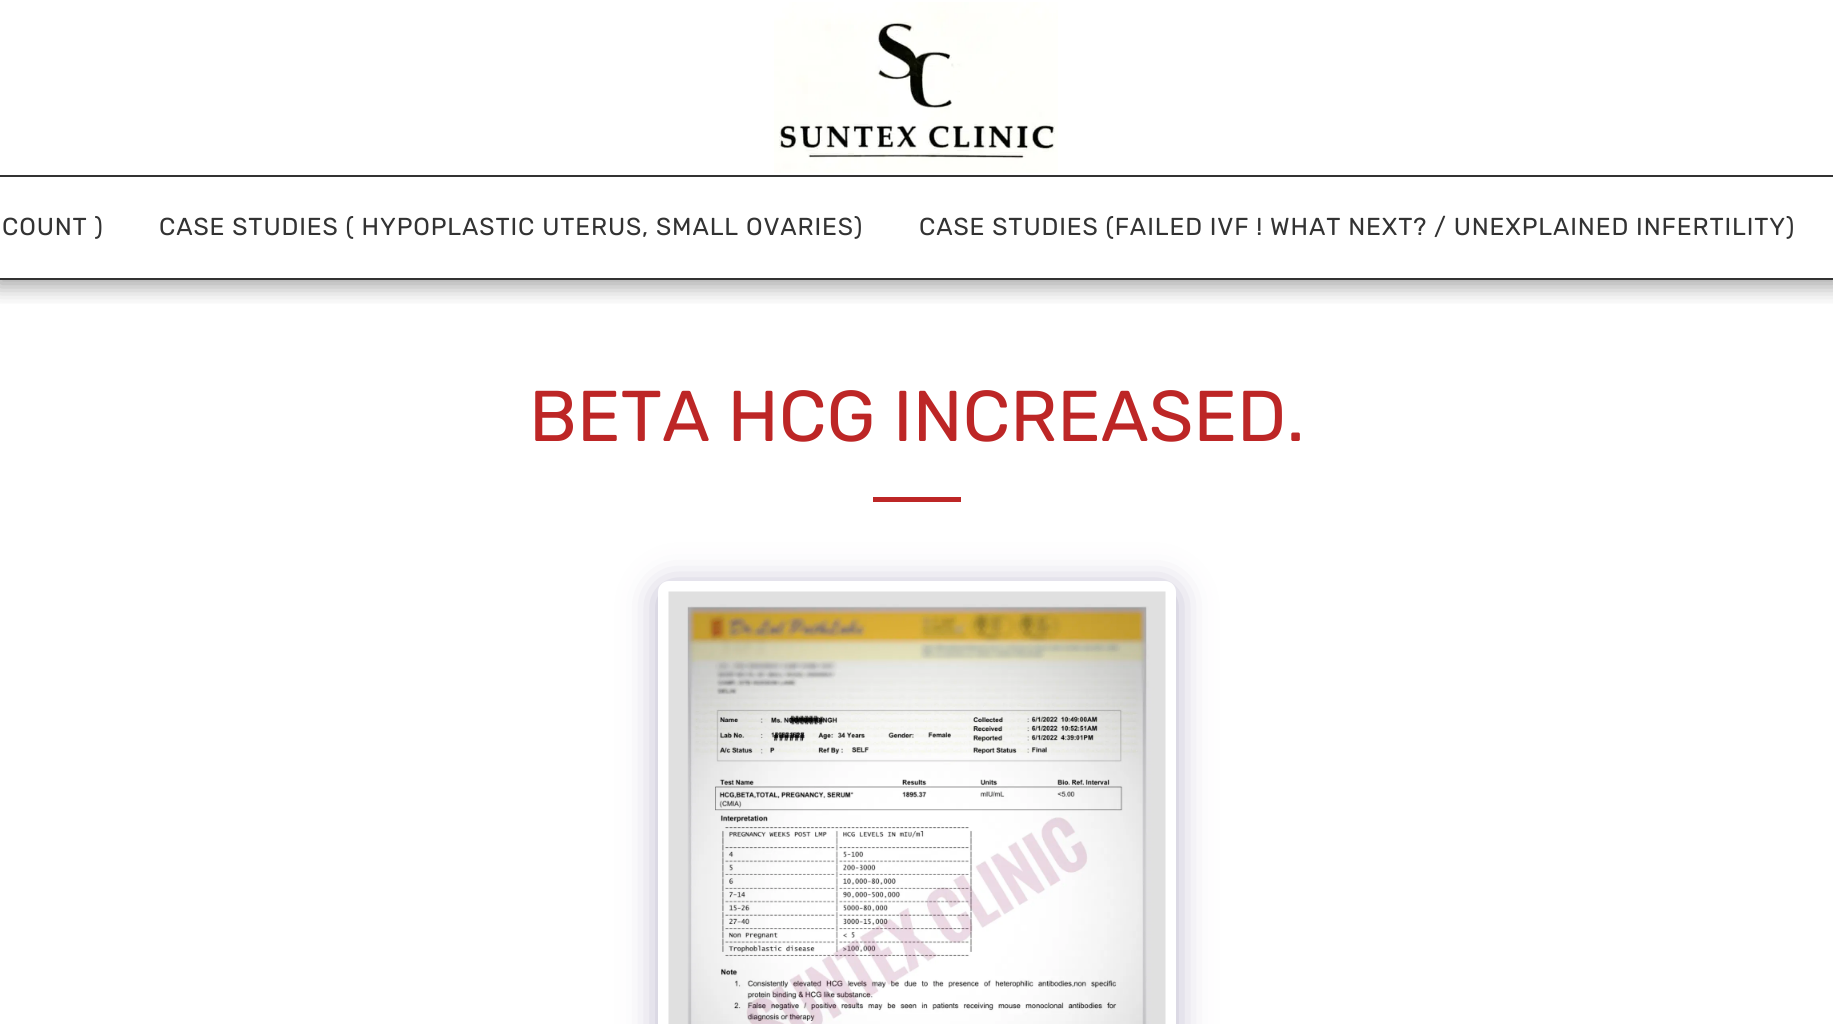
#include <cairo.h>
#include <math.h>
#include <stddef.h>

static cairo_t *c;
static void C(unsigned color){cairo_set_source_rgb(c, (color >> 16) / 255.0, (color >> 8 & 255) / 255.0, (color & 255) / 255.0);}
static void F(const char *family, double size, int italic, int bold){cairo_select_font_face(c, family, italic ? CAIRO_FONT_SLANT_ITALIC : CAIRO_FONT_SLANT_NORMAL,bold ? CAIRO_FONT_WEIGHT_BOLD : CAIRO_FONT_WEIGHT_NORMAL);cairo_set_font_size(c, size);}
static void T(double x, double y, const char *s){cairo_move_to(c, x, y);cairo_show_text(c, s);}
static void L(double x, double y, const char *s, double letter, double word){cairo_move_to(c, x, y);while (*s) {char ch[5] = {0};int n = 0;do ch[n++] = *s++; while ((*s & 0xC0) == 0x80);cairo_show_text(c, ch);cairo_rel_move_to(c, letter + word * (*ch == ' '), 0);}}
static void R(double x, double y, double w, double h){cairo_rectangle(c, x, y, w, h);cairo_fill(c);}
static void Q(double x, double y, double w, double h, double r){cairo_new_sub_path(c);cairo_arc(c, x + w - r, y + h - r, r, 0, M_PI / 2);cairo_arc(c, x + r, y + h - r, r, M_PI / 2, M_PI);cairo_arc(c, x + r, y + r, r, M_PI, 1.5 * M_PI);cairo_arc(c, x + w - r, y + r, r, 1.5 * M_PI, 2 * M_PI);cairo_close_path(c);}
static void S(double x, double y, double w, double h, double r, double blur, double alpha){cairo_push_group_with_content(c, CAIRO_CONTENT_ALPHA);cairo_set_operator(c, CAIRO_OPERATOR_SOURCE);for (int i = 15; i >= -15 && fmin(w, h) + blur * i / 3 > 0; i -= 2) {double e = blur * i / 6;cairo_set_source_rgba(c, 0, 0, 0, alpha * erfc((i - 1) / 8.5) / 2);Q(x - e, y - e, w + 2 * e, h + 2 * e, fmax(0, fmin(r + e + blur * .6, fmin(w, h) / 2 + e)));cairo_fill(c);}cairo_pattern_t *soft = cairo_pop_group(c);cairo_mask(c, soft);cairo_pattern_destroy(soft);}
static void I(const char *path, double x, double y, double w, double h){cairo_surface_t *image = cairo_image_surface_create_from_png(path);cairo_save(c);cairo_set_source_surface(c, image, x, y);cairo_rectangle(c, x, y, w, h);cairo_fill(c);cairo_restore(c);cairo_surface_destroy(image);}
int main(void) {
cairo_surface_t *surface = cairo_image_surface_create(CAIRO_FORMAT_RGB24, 1833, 1024);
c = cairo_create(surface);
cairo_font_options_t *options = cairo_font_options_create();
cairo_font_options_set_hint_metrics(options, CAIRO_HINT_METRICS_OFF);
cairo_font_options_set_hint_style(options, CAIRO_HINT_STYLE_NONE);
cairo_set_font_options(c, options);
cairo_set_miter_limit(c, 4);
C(0xffffff);
cairo_paint(c);
cairo_save(c);
cairo_rectangle(c,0,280,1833,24);
cairo_clip(c);
C(0x000000);
S(-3,0,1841,287,0,10.5,.35);
cairo_restore(c);
C(0x333333);
R(0,278,1833,2);
I("1.png",774,2,284,171);
R(0,175,1833,2);
F("Rubik",24.5,0,0);
L(2,235,"COUNT )",.88,0);
L(159,235,"CASE STUDIES ( HYPOPLASTIC UTERUS, SMALL OVARIES)",.88,0);
L(919,235,"CASE STUDIES (FAILED IVF ! WHAT NEXT? / UNEXPLAINED INFERTILITY)",.88,0);
F("Rubik",71.75,0,0);
C(0xbd2626);
T(529,441,"BETA HCG INCREASED.");
R(873,497,88,5);
C(0x4d3f7a);
S(658,586,518,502,11,17.5,.4);
C(0xffffff);
Q(658,581,518,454,11);
cairo_fill(c);
I("2.png",668,591,498,433);
cairo_surface_write_to_png(surface, "o.png");
cairo_font_options_destroy(options);
cairo_destroy(c);
cairo_surface_destroy(surface);
return 0;
}
